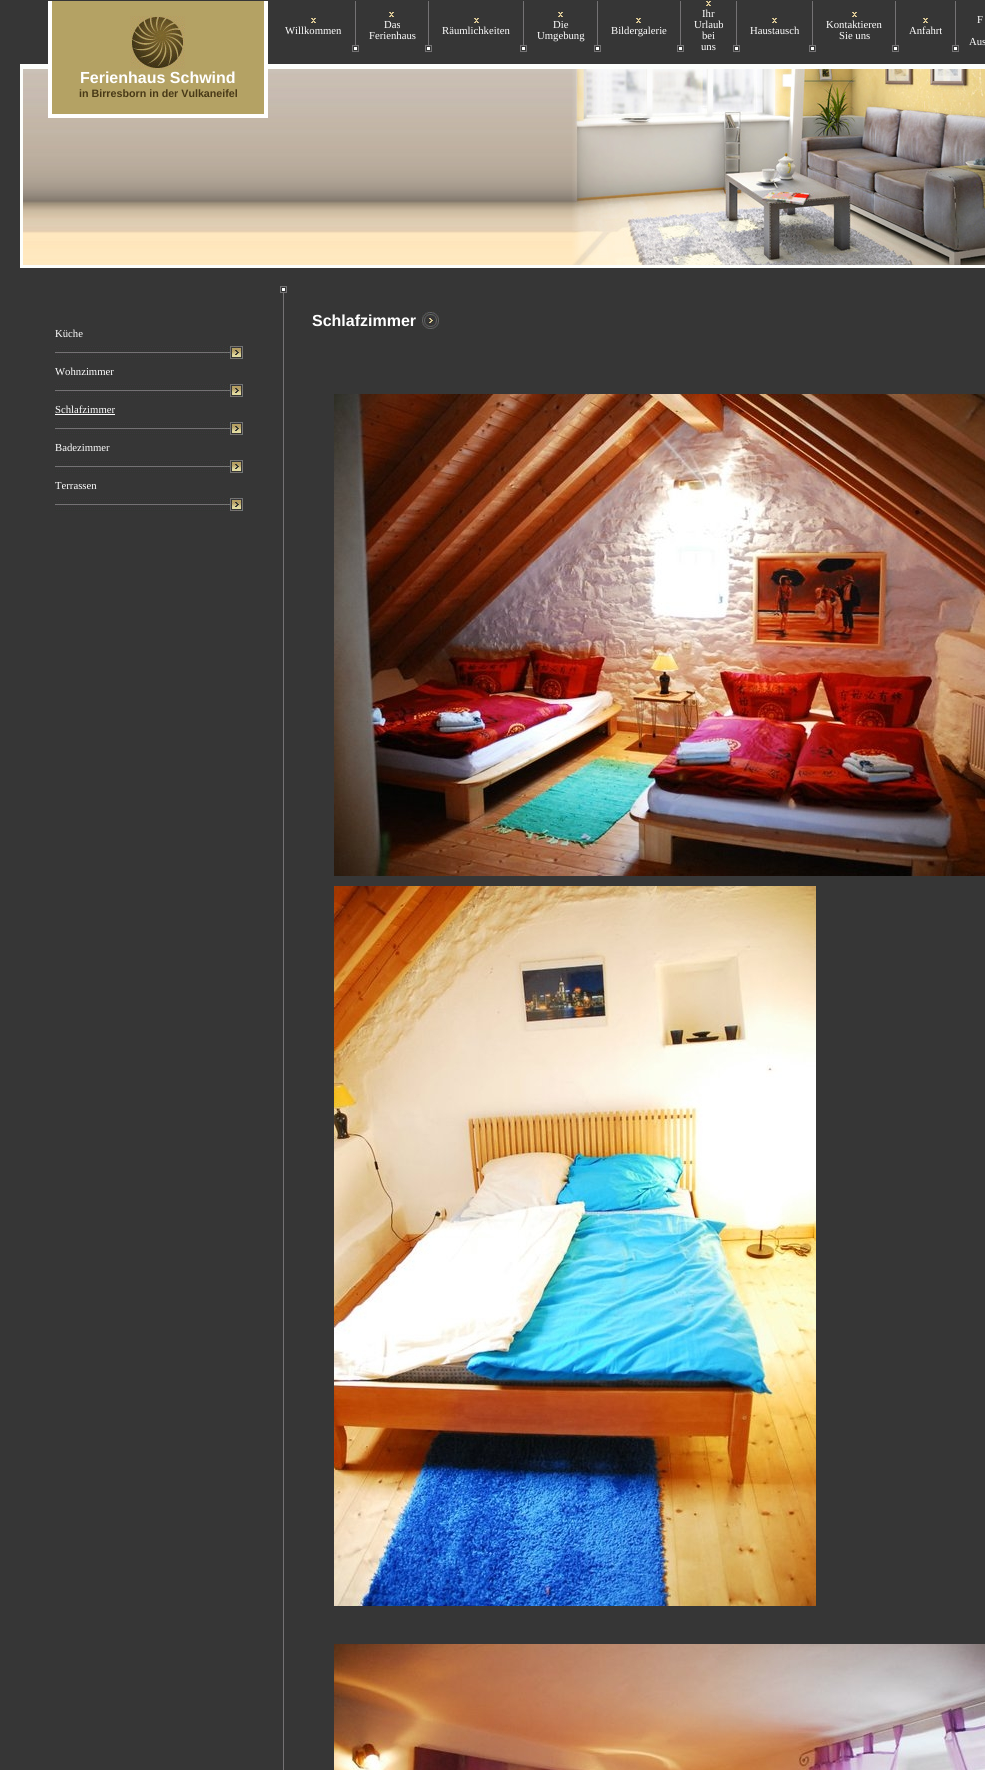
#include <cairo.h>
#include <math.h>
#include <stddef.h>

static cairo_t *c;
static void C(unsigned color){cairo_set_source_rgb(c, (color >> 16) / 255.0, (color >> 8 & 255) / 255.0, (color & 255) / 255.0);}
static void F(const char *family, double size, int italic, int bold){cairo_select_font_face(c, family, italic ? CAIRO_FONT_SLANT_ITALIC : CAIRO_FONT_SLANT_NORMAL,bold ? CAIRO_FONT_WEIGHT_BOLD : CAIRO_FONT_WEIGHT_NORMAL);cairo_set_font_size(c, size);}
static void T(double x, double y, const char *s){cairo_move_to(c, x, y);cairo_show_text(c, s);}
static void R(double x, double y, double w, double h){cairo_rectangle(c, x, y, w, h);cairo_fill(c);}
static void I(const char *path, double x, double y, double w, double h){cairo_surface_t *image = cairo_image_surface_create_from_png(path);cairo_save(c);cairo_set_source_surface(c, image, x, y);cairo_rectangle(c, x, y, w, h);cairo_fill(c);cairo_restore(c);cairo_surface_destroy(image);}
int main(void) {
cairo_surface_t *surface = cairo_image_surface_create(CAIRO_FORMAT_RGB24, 985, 1770);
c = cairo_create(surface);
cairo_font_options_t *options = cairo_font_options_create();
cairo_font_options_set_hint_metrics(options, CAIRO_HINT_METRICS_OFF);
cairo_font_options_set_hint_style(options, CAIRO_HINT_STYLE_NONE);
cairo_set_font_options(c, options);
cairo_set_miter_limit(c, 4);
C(0x363636);
cairo_paint(c);
C(0xfcfefc);
R(20,64,965,204);
I("1.png",23,69,549,196);
I("2.png",572,69,413,196);
I("3.png",311,18,5,5);
F("Liberation Serif",10.7,0,0);
C(0xffffff);
T(285,34,"Willkommen");
C(0x747274);
R(355,1,1,51);
I("4.png",352,45,7,7);
I("3.png",389,12,5,5);
C(0xffffff);
T(384,28,"Das");
T(369,39,"Ferienhaus");
C(0x747274);
R(428,1,1,51);
I("4.png",425,45,7,7);
I("3.png",474,18,5,5);
C(0xffffff);
T(442,34,"Räumlichkeiten");
C(0x747274);
R(523,1,1,51);
I("4.png",520,45,7,7);
I("3.png",558,12,5,5);
C(0xffffff);
T(553,28,"Die");
T(537,39,"Umgebung");
C(0x747274);
R(597,1,1,51);
I("4.png",594,45,7,7);
I("3.png",636,18,5,5);
C(0xffffff);
T(611,34,"Bildergalerie");
C(0x747274);
R(680,1,1,51);
I("4.png",677,45,7,7);
I("3.png",706,1,5,5);
C(0xffffff);
T(702,17,"Ihr");
T(694,28,"Urlaub");
T(702,39,"bei");
T(701,50,"uns");
C(0x747274);
R(736,1,1,51);
I("4.png",733,45,7,7);
I("3.png",772,18,5,5);
C(0xffffff);
T(750,34,"Haustausch");
C(0x747274);
R(812,1,1,51);
I("4.png",809,45,7,7);
I("3.png",852,12,5,5);
C(0xffffff);
T(826,28,"Kontaktieren");
T(839,39,"Sie uns");
C(0x747274);
R(895,1,1,51);
I("4.png",892,45,7,7);
I("3.png",923,18,5,5);
C(0xffffff);
T(909,34,"Anfahrt");
C(0x747274);
R(955,1,1,51);
I("4.png",952,45,7,7);
C(0xffffff);
T(977,23,"F");
T(969,45,"Aus");
R(48,1,220,117);
C(0xb4a264);
R(52,1,212,113);
I("5.png",130,16,55,53);
F("Liberation Sans",16,0,1);
C(0xffffff);
T(80,83,"Ferienhaus Schwind");
F("Liberation Sans",10.7,0,1);
C(0x483917);
T(79,97,"in Birresborn in der Vulkaneifel");
C(0x747274);
R(283,286,1,1484);
I("4.png",280,286,7,7);
F("Liberation Sans",16,0,1);
C(0xffffff);
T(312,326,"Schlafzimmer");
I("6.png",421,311,19,19);
I("7.png",334,394,651,482);
I("8.png",334,886,482,720);
I("9.png",334,1644,651,126);
F("Liberation Serif",10.7,0,0);
T(55,337,"Küche");
I("10.png",55,346,188,13);
T(55,375,"Wohnzimmer");
I("10.png",55,384,188,13);
T(55,413,"Schlafzimmer");
R(55,414,60,1);
I("10.png",55,422,188,13);
T(55,451,"Badezimmer");
I("10.png",55,460,188,13);
T(55,489,"Terrassen");
I("10.png",55,498,188,13);
cairo_surface_write_to_png(surface, "o.png");
cairo_font_options_destroy(options);
cairo_destroy(c);
cairo_surface_destroy(surface);
return 0;
}
